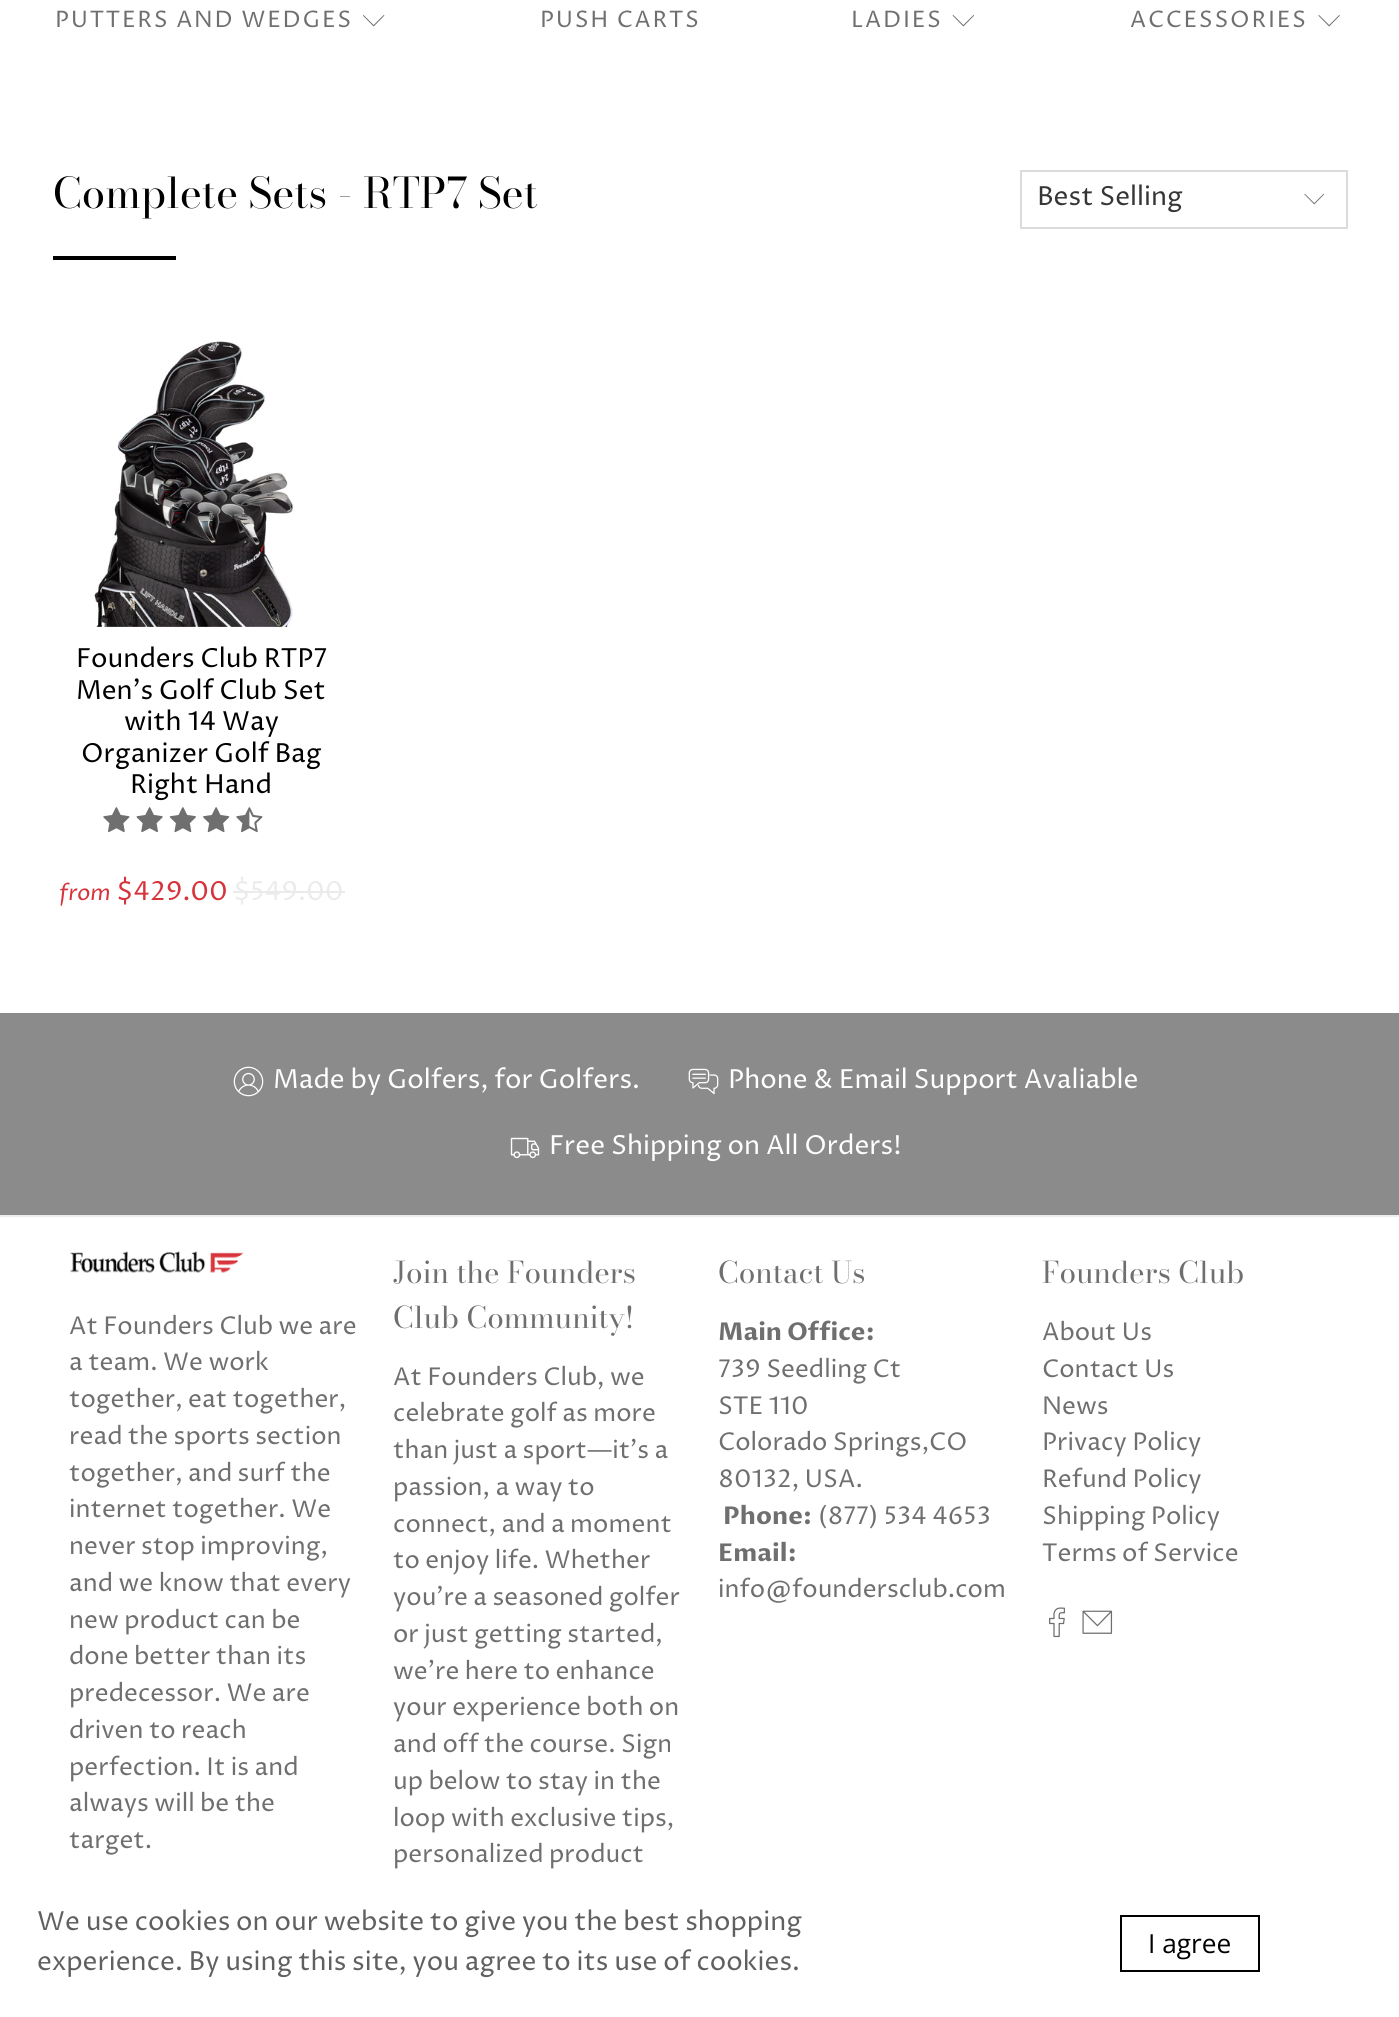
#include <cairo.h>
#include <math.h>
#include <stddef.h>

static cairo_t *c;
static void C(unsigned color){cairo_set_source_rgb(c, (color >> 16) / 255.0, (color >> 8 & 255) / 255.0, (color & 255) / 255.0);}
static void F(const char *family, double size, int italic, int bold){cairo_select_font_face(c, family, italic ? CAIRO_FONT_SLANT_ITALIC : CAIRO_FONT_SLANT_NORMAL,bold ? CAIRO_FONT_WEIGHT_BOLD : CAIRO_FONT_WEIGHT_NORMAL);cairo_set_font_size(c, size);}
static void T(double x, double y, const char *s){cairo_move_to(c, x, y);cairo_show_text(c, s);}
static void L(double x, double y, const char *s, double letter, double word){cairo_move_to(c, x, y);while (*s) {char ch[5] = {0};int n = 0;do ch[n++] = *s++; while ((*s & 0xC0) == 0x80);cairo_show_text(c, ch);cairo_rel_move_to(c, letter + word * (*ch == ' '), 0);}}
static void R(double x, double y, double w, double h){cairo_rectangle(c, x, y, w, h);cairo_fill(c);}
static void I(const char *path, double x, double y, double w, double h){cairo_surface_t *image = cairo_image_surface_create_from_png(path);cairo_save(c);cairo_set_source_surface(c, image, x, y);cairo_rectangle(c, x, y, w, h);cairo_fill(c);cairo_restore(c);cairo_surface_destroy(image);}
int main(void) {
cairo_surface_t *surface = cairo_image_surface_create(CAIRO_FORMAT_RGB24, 1399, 2017);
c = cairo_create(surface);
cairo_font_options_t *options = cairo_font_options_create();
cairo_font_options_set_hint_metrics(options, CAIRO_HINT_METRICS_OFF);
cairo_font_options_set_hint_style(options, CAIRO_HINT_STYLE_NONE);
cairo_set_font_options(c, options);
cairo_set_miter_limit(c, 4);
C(0xffffff);
cairo_paint(c);
F("Proza Libre",22.75,0,0);
C(0x6f6f6f);
L(55,27,"PUTTERS AND WEDGES",1.75,0);
I("1.png",363,15,22,12);
L(540,27,"PUSH CARTS",1.75,0);
L(851,27,"LADIES",1.75,0);
I("2.png",952,15,22,12);
L(1130,27,"ACCESSORIES",1.75,0);
I("3.png",1318,15,22,12);
F("Bodoni Moda",42,0,0);
C(0x000000);
T(53,208,"Complete Sets - RTP7 Set");
R(53,256,123,4);
cairo_rectangle(c,1021,171,326,57);
C(0xdbdbdb);
cairo_stroke(c);
F("Proza Libre",26.25,0,0);
C(0x363636);
T(1037,205,"Best Selling");
I("4.png",1304,193,21,12);
I("5.png",94,341,200,286);
C(0x000000);
T(76,667,"Founders Club RTP7");
T(76,699,"Men's Golf Club Set");
T(124,730,"with 14 Way");
T(81,762,"Organizer Golf Bag");
T(130,793,"Right Hand");
I("6.png",103,807,27,26);
I("7.png",136,807,27,26);
I("8.png",169,807,27,26);
I("9.png",203,807,27,26);
I("10.png",236,807,27,26);
F("Proza Libre",22,1,0);
C(0xd6333b);
T(59,900,"from");
F("Proza Libre",26.25,0,0);
T(116,900,"$429.00");
C(0xebebeb);
T(233,900,"$549.00");
R(233,891,112,2);
C(0x8b8b8b);
R(0,1013,1399,202);
I("11.png",233,1066,31,31);
C(0xffffff);
T(273,1088,"Made by Golfers, for Golfers.");
I("12.png",688,1068,31,27);
T(728,1088,"Phone & Email Support Avaliable");
I("13.png",510,1137,30,22);
T(549,1154,"Free Shipping on All Orders!");
C(0xededed);
R(0,1215,1399,2);
I("14.png",70,1251,174,22);
F("Proza Libre",24.5,0,0);
C(0x6f6f6f);
T(69,1334,"At Founders Club we are");
T(69,1370,"a team. We work");
T(69,1407,"together, eat together,");
T(69,1444,"read the sports section");
T(69,1481,"together, and surf the");
T(69,1517,"internet together. We");
T(69,1554,"never stop improving,");
T(69,1591,"and we know that every");
T(69,1628,"new product can be");
T(69,1664,"done better than its");
T(69,1701,"predecessor. We are");
T(69,1738,"driven to reach");
T(69,1775,"perfection. It is and");
T(69,1811,"always will be the");
T(69,1848,"target.");
F("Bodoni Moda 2",29.75,0,0);
T(393,1283,"Join the Founders");
T(393,1328,"Club Community!");
F("Proza Libre",24.5,0,0);
T(393,1385,"At Founders Club, we");
T(393,1421,"celebrate golf as more");
T(393,1458,"than just a sport—it’s a");
T(393,1495,"passion, a way to");
T(393,1532,"connect, and a moment");
T(393,1568,"to enjoy life. Whether");
T(393,1605,"you’re a seasoned golfer");
T(393,1642,"or just getting started,");
T(393,1679,"we’re here to enhance");
T(393,1715,"your experience both on");
T(393,1752,"and off the course. Sign");
T(393,1789,"up below to stay in the");
T(393,1826,"loop with exclusive tips,");
T(393,1862,"personalized product");
F("Bodoni Moda 2",29.75,0,0);
T(718,1283,"Contact Us");
F("Proza Libre",24.5,0,1);
T(718,1340,"Main Office:");
F("Proza Libre",24.5,0,0);
T(718,1377,"739 Seedling Ct");
T(718,1414,"STE 110");
T(718,1450,"Colorado Springs,CO");
T(718,1487,"80132, USA.");
F("Proza Libre",24.5,0,1);
T(723,1524,"Phone:");
F("Proza Libre",24.5,0,0);
T(818,1524,"(877) 534 4653");
F("Proza Libre",24.5,0,1);
T(718,1561,"Email:");
F("Proza Libre",24.5,0,0);
T(718,1597,"info@foundersclub.com");
F("Bodoni Moda 2",29.75,0,0);
T(1042,1283,"Founders Club");
F("Proza Libre",24.5,0,0);
T(1042,1340,"About Us");
T(1042,1377,"Contact Us");
T(1042,1414,"News");
T(1042,1450,"Privacy Policy");
T(1042,1487,"Refund Policy");
T(1042,1524,"Shipping Policy");
T(1042,1561,"Terms of Service");
I("15.png",1049,1607,16,31);
I("16.png",1082,1610,31,24);
F("Proza Libre",26.25,0,0);
C(0x606060);
T(37,1930,"We use cookies on our website to give you the best shopping");
T(37,1970,"experience. By using this site, you agree to its use of cookies.");
cairo_rectangle(c,1121,1916,138,55);
C(0x000000);
cairo_stroke(c);
F("Open Sans",26.25,0,0);
T(1148,1953,"I agree");
cairo_surface_write_to_png(surface, "o.png");
cairo_font_options_destroy(options);
cairo_destroy(c);
cairo_surface_destroy(surface);
return 0;
}
